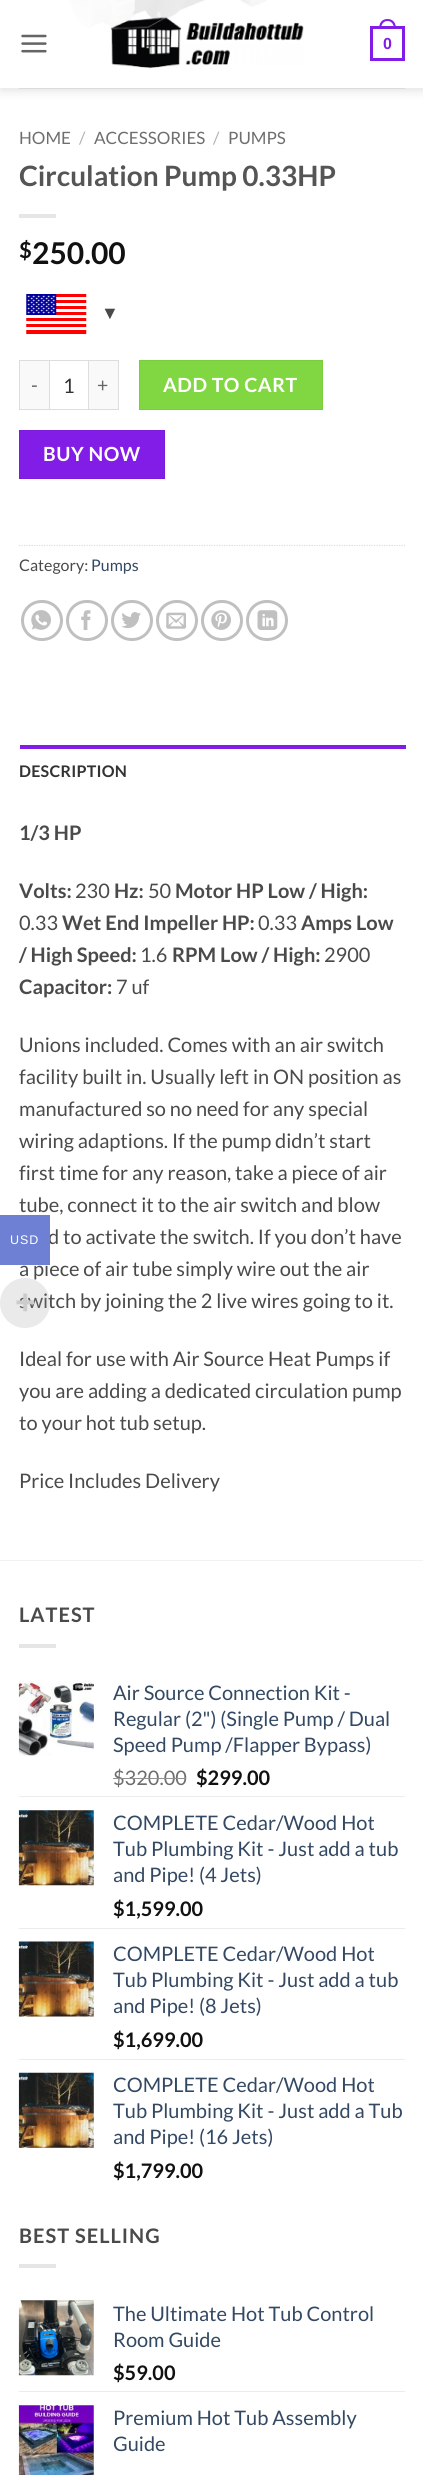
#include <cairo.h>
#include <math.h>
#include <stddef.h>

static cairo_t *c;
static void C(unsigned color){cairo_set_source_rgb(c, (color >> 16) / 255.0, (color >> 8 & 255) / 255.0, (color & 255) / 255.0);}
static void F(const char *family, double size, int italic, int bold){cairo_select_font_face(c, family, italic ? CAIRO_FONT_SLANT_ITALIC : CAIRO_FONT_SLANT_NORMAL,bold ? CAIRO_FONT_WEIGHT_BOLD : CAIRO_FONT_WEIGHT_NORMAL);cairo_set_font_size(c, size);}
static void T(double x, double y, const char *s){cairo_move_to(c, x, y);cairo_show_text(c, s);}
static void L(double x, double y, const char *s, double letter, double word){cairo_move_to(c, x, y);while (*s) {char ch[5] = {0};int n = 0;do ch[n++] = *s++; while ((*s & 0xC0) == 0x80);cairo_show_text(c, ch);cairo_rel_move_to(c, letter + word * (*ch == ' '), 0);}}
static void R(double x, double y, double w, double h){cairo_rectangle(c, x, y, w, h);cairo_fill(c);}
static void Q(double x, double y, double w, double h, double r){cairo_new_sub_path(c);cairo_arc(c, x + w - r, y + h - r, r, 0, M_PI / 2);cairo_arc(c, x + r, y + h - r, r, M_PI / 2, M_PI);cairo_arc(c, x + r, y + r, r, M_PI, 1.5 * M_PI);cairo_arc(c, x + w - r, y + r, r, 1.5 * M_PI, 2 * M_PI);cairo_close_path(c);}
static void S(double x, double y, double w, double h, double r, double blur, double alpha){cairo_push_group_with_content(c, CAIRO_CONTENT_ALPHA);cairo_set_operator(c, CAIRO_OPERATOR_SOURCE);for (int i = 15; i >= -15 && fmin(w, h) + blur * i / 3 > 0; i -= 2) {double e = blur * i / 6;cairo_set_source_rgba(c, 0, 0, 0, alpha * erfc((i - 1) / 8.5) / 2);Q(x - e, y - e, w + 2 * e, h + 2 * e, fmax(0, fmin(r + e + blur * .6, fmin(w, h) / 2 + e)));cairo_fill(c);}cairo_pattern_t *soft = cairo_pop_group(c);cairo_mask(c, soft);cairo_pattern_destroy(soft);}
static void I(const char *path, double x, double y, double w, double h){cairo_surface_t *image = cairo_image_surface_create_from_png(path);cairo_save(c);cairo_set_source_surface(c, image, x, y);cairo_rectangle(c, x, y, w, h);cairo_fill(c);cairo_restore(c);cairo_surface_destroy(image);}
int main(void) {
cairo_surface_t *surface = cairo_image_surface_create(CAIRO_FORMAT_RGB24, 423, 2475);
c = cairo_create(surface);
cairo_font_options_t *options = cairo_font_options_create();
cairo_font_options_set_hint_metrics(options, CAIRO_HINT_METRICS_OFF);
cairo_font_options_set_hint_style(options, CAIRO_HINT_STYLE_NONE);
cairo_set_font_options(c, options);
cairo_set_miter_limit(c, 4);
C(0xffffff);
cairo_paint(c);
I("3.png",68,0,205,28);
cairo_save(c);
cairo_set_fill_rule(c,CAIRO_FILL_RULE_EVEN_ODD);
cairo_new_path(c);
cairo_move_to(c,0,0);
cairo_line_to(c,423,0);
cairo_line_to(c,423,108);
cairo_line_to(c,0,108);
cairo_close_path(c);
cairo_move_to(c,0,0);
cairo_line_to(c,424,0);
cairo_line_to(c,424,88);
cairo_line_to(c,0,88);
cairo_close_path(c);
cairo_clip(c);
C(0x000000);
S(1,1,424,88,0,6,.15);
cairo_restore(c);
cairo_set_source_rgba(c,1,1,1,0.9);
R(0,0,423,88);
I("1.png",21,34,26,19);
I("2.png",110,17,194,52);
cairo_rectangle(c,371.5,27.5,32,32);
C(0x821ce7);
cairo_set_line_width(c,3);
cairo_stroke(c);
cairo_set_fill_rule(c,CAIRO_FILL_RULE_EVEN_ODD);
cairo_new_path(c);
cairo_move_to(c,387.5,19);
cairo_curve_to(c,393.5,19,396,23.5,396,29);
cairo_line_to(c,379,29);
cairo_curve_to(c,379,23.5,381.5,19,387.5,19);
cairo_close_path(c);
cairo_move_to(c,387.5,21);
cairo_curve_to(c,392,21,394,25,394,29);
cairo_line_to(c,381,29);
cairo_curve_to(c,381,25,383,21,387.5,21);
cairo_close_path(c);
cairo_fill(c);
F("Liberation Sans",16,0,1);
T(383,49,"0");
C(0xdbdbdb);
R(19,88,386,1);
F("Lato",17,0,0);
C(0x6e6e6e);
T(19,144,"HOME");
C(0xb2b2b2);
T(79,144,"/");
C(0x6e6e6e);
T(94,144,"ACCESSORIES");
C(0xb2b2b2);
T(213,144,"/");
C(0x6e6e6e);
T(228,144,"PUMPS");
F("Lato",28,0,1);
C(0x555555);
T(19,186,"Circulation Pump 0.33HP");
C(0xe6e6e6);
R(19,214,37,4);
F("Lato",22,0,1);
C(0x111111);
T(19,258,"$");
F("Lato",30,0,1);
T(32,264,"250.00");
I("4.png",26,294,61,40);
F("Liberation Sans",18,0,0);
C(0x4a4a4a);
T(101,319,"▼");
C(0xf9f9f9);
R(20,361,29,48);
C(0xdddddd);
R(19,360,30,1);
R(19,409,30,1);
R(19,360,1,50);
F("Lato",19.5,0,0);
C(0x666666);
L(31,392,"-",.5,0);
cairo_rectangle(c,49.5,360.5,39,49);
C(0xdddddd);
cairo_set_line_width(c,1);
cairo_stroke(c);
F("Lato",20,0,0);
C(0x333333);
T(63,393,"1");
C(0xf9f9f9);
R(89,361,29,48);
C(0xdddddd);
R(89,360,30,1);
R(118,360,1,50);
R(89,409,30,1);
F("Lato",19.5,0,0);
C(0x666666);
L(97,392,"+",.5,0);
C(0x81d742);
cairo_rectangle(c,139.5,360.5,183,49);
cairo_fill_preserve(c);
C(0x7bcc3f);
cairo_stroke(c);
F("Lato",19.5,0,1);
C(0xffffff);
L(163,392,"ADD TO CART",.5,0);
C(0x821ce7);
cairo_rectangle(c,19.5,430.5,145,48);
cairo_fill_preserve(c);
C(0x7c1bdb);
cairo_stroke(c);
C(0xffffff);
L(43,461,"BUY NOW",.5,0);
cairo_new_path(c);
cairo_move_to(c,19,545.5);
cairo_line_to(c,405,545.5);
C(0xdddddd);
cairo_set_line_width(c,1.2);
cairo_set_dash(c,(double[]){1.25,1.25},2,0);
cairo_stroke(c);
F("Lato",16,0,0);
C(0x4a4a4a);
T(19,571,"Category:");
C(0x334862);
T(91,571,"Pumps");
Q(22.5,601.5,39,38,19);
C(0xc0c0c0);
cairo_set_line_width(c,3);
cairo_set_dash(c,NULL,0,0);
cairo_stroke(c);
I("5.png",31,610,20,20);
Q(67.5,601.5,39,38,19);
cairo_stroke(c);
I("6.png",81,610,10,20);
Q(112.5,601.5,39,38,19);
cairo_stroke(c);
I("7.png",121,612,20,17);
Q(157.5,601.5,39,38,19);
cairo_stroke(c);
I("8.png",166,612,20,17);
Q(202.5,601.5,39,38,19);
cairo_stroke(c);
I("9.png",211,610,20,20);
Q(247.5,601.5,39,38,19);
cairo_stroke(c);
I("10.png",257,610,21,20);
C(0xececec);
R(19,745,1,1);
C(0x821ce7);
R(20,745,386,4);
F("Lato",16,0,1);
C(0x333333);
L(19,777,"DESCRIPTION",.25,0);
F("Lato",20,0,1);
C(0x4a4a4a);
T(19,840,"1/3 HP");
T(19,898,"Volts:");
F("Lato",20,0,0);
T(75,898,"230");
F("Lato",20,0,1);
T(114,898,"Hz:");
F("Lato",20,0,0);
T(148,898,"50");
F("Lato",20,0,1);
T(175,898,"Motor HP Low / High:");
F("Lato",20,0,0);
T(19,930,"0.33");
F("Lato",20,0,1);
T(62,930,"Wet End Impeller HP:");
F("Lato",20,0,0);
T(258,930,"0.33");
F("Lato",20,0,1);
T(301,930,"Amps Low");
T(19,962,"/ High Speed:");
F("Lato",20,0,0);
T(140,962,"1.6");
F("Lato",20,0,1);
T(172,962,"RPM Low / High:");
F("Lato",20,0,0);
T(324,962,"2900");
F("Lato",20,0,1);
T(19,994,"Capacitor:");
F("Lato",20,0,0);
T(116,994,"7 uf");
T(19,1052,"Unions included. Comes with an air switch");
T(19,1084,"facility built in. Usually left in ON position as");
T(19,1116,"manufactured so no need for any special");
T(19,1148,"wiring adaptions. If the pump didn’t start");
T(19,1180,"first time for any reason, take a piece of air");
T(19,1212,"tube, connect it to the air switch and blow");
T(48,1244,"d to activate the switch. If you don’t have");
T(19,1276,"a piece of air tube simply wire out the air");
T(19,1308,"switch by joining the 2 live wires going to it.");
T(19,1366,"Ideal for use with Air Source Heat Pumps if");
T(19,1398,"you are adding a dedicated circulation pump");
T(19,1430,"to your hot tub setup.");
T(19,1488,"Price Includes Delivery");
C(0xf2f2f2);
R(0,1560,423,1);
F("Lato",20,0,1);
C(0x4a4a4a);
L(19,1622,"LATEST",1,0);
C(0xe6e6e6);
R(19,1644,37,4);
I("11.png",18,1680,76,76);
F("Lato",20,0,0);
C(0x334862);
T(113,1700,"Air Source Connection Kit -");
T(113,1726,"Regular (2\") (Single Pump / Dual");
T(113,1752,"Speed Pump /Flapper Bypass)");
C(0x6e6e6e);
T(113,1785,"$320.00");
C(0x929292);
R(113,1778,73,1);
F("Lato",20,0,1);
C(0x111111);
T(196,1785,"$299.00");
C(0xececec);
R(19,1796,386,1);
I("12.png",18,1810,76,76);
F("Lato",20,0,0);
C(0x334862);
T(113,1830,"COMPLETE Cedar/Wood Hot");
cairo_save(c);
cairo_set_fill_rule(c,CAIRO_FILL_RULE_WINDING);
cairo_rectangle(c,113,1810,292,79);
cairo_clip(c);
T(113,1856,"Tub Plumbing Kit - Just add a tub");
cairo_restore(c);
T(113,1882,"and Pipe! (4 Jets)");
F("Lato",20,0,1);
C(0x111111);
T(113,1916,"$1,599.00");
C(0xececec);
R(19,1928,386,1);
I("13.png",18,1941,76,76);
F("Lato",20,0,0);
C(0x334862);
T(113,1961,"COMPLETE Cedar/Wood Hot");
cairo_save(c);
cairo_set_fill_rule(c,CAIRO_FILL_RULE_WINDING);
cairo_rectangle(c,113,1941,292,78);
cairo_clip(c);
T(113,1987,"Tub Plumbing Kit - Just add a tub");
cairo_restore(c);
T(113,2013,"and Pipe! (8 Jets)");
F("Lato",20,0,1);
C(0x111111);
T(113,2047,"$1,699.00");
C(0xececec);
R(19,2059,386,1);
I("14.png",18,2072,76,76);
F("Lato",20,0,0);
C(0x334862);
T(113,2092,"COMPLETE Cedar/Wood Hot");
cairo_save(c);
cairo_set_fill_rule(c,CAIRO_FILL_RULE_WINDING);
cairo_rectangle(c,113,2073,292,77);
cairo_clip(c);
T(113,2118,"Tub Plumbing Kit - Just add a Tub");
cairo_restore(c);
T(113,2144,"and Pipe! (16 Jets)");
F("Lato",20,0,1);
C(0x111111);
T(113,2178,"$1,799.00");
C(0x4a4a4a);
L(19,2243,"BEST SELLING",1,0);
C(0xe6e6e6);
R(19,2264,37,4);
I("15.png",18,2300,76,76);
cairo_save(c);
cairo_set_fill_rule(c,CAIRO_FILL_RULE_WINDING);
cairo_rectangle(c,113,2300,292,53);
cairo_clip(c);
F("Lato",20,0,0);
C(0x334862);
T(113,2321,"The Ultimate Hot Tub Control");
cairo_restore(c);
F("Lato",20,0,0);
C(0x334862);
T(113,2347,"Room Guide");
F("Lato",20,0,1);
C(0x111111);
T(113,2380,"$59.00");
C(0xececec);
R(19,2391,386,1);
I("16.png",18,2405,76,70);
F("Lato",20,0,0);
C(0x334862);
T(113,2425,"Premium Hot Tub Assembly");
T(113,2451,"Guide");
C(0x6d80d3);
R(0,1215,50,50);
F("Liberation Sans",12.5,0,0);
C(0xffffff);
L(10,1244,"USD",1,0);
cairo_set_source_rgba(c,0.6,0.6,0.6,0.2);
cairo_new_path(c);
cairo_arc(c,25,1303,25,0,2 * M_PI);
cairo_fill(c);
F("Liberation Sans",35,0,1);
C(0xcccccc);
T(15,1314,"+");
cairo_surface_write_to_png(surface, "o.png");
cairo_font_options_destroy(options);
cairo_destroy(c);
cairo_surface_destroy(surface);
return 0;
}
